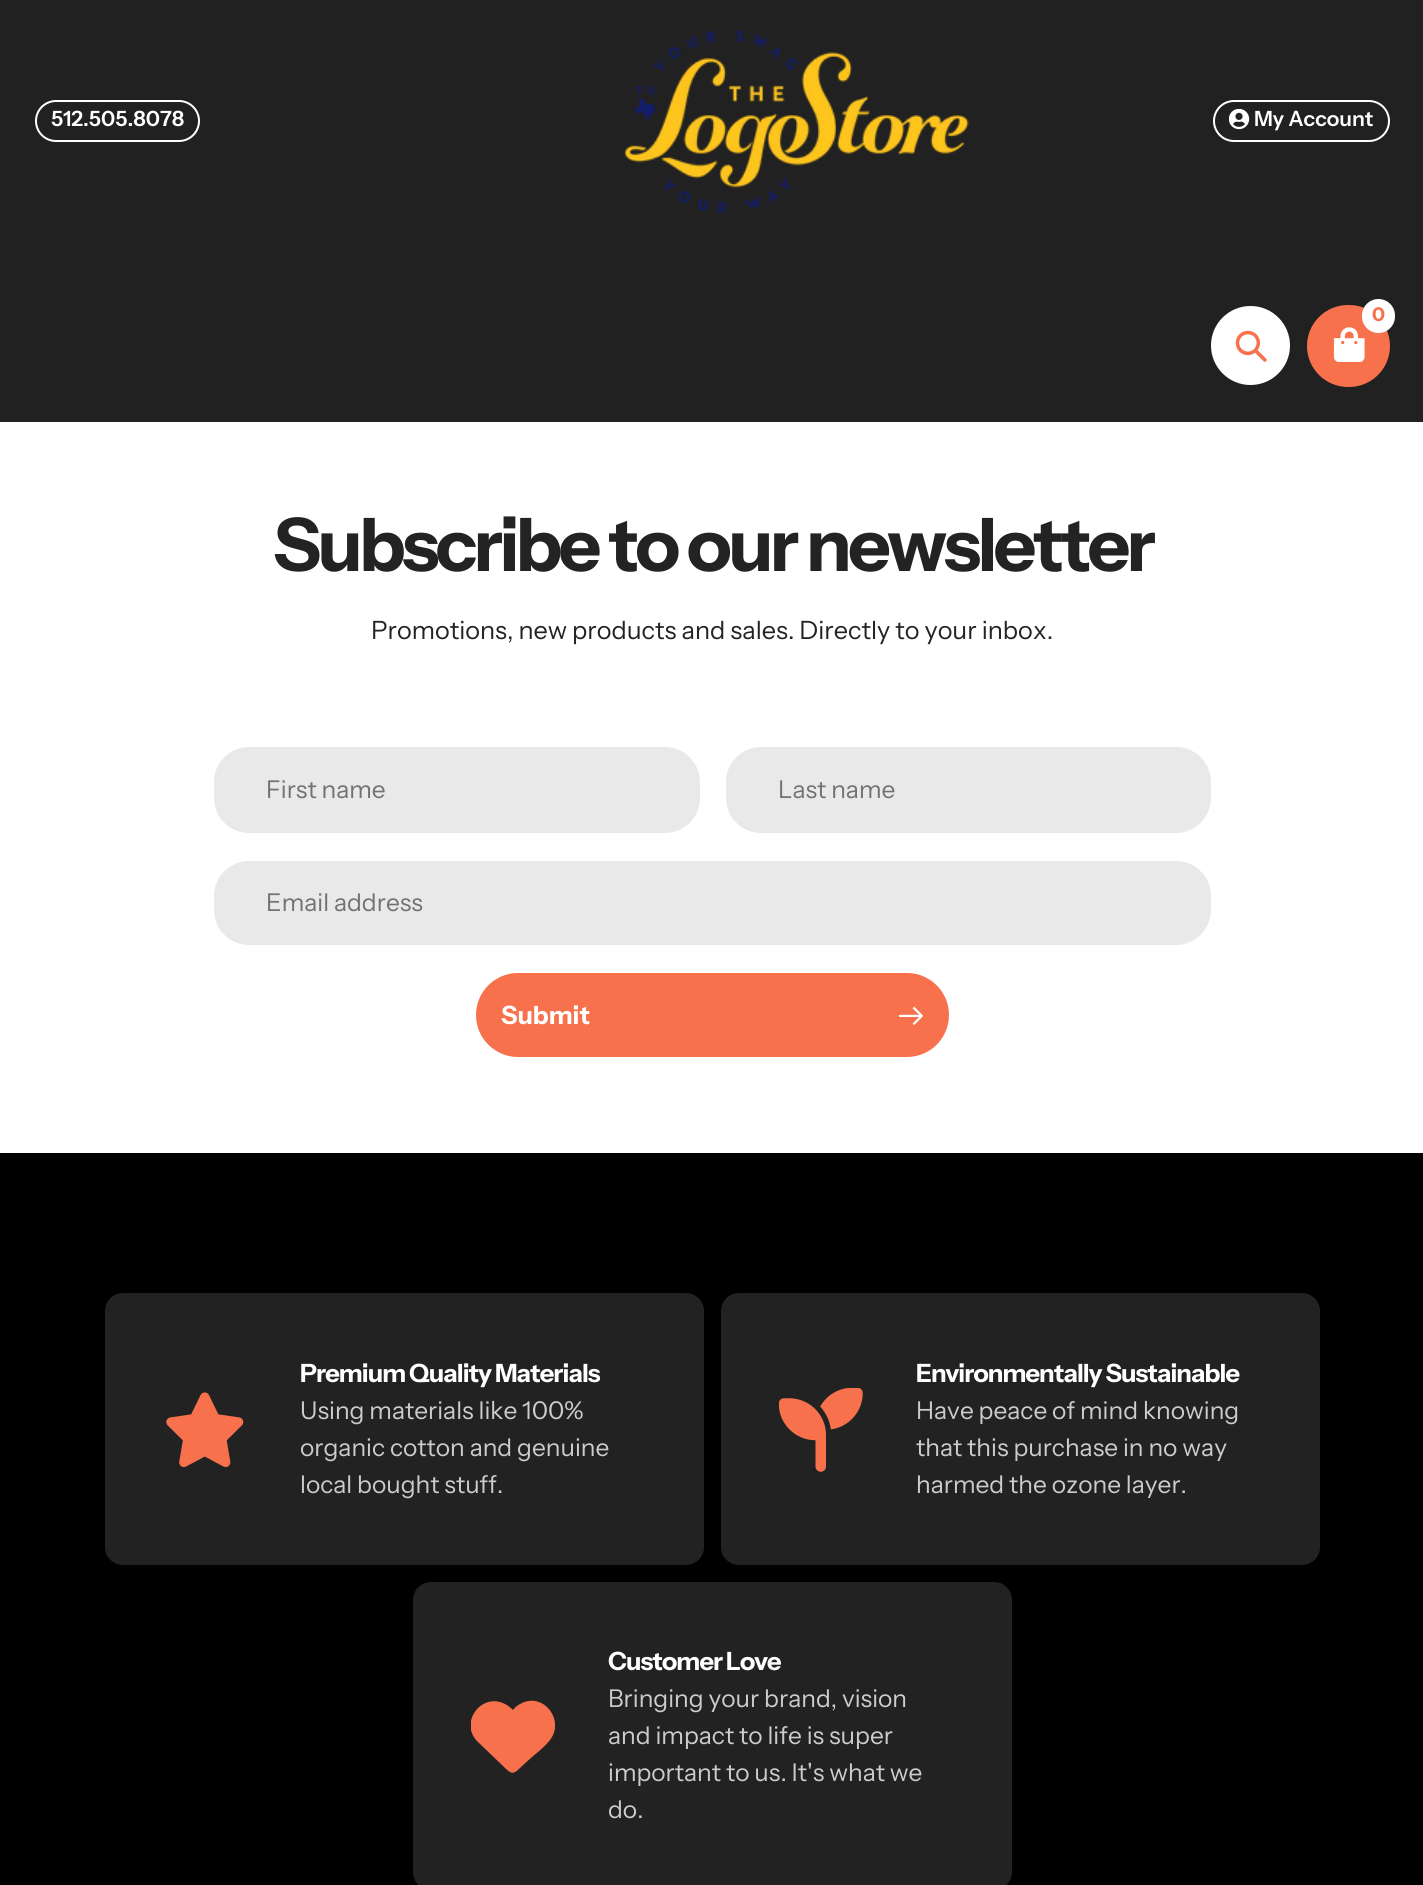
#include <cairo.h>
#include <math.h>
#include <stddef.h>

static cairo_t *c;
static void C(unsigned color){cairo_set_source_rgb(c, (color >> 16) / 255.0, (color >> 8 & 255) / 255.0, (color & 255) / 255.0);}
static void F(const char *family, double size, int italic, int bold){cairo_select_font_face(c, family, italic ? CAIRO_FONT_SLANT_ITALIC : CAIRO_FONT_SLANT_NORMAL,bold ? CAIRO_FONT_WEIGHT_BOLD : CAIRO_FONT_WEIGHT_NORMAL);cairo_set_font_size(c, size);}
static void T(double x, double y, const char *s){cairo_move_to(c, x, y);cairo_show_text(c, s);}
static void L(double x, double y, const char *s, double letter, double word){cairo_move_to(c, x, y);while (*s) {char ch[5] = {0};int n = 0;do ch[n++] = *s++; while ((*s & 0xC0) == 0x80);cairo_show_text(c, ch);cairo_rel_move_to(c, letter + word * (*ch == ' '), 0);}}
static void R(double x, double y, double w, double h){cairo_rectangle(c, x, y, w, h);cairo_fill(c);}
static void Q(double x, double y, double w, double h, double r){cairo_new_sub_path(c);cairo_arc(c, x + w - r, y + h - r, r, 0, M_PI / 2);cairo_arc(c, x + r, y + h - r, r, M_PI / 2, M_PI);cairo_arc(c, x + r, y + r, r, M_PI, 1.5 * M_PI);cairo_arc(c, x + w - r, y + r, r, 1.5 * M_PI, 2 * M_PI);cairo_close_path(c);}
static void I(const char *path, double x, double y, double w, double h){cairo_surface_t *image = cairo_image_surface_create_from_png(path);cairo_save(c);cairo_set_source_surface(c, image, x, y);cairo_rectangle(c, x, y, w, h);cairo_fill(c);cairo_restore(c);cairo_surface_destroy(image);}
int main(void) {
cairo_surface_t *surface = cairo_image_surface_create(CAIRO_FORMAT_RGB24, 1423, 1885);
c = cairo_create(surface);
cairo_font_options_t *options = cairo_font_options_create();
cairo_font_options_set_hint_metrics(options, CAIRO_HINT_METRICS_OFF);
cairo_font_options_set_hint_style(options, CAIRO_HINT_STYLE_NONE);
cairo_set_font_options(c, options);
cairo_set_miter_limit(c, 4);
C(0xffffff);
cairo_paint(c);
C(0x212121);
R(0,0,1423,422);
Q(36,101,163,40,20);
C(0xffffff);
cairo_stroke(c);
F("Instrument Sans SemiBold",21,0,0);
T(51,126,"512.505.8078");
I("1.png",624,30,345,184);
Q(1214,101,175,40,20);
cairo_stroke(c);
I("2.png",1229,109,21,21);
T(1254,126,"My Account");
cairo_new_path(c);
cairo_arc(c,1250.5,345.5,39.5,0,2 * M_PI);
cairo_fill(c);
I("3.png",1235,330,32,32);
C(0xf8714d);
Q(1307,305,83,82,41);
cairo_fill(c);
I("4.png",1333,327,32,35);
C(0xffffff);
Q(1362,299,33,34,16.5);
cairo_fill(c);
F("Instrument Sans",19,0,1);
C(0xf8714d);
T(1372,321,"0");
F("Instrument Sans",73.75,0,1);
C(0x232323);
L(273,571,"Subscribe to our newsletter",-3.5,0);
F("Instrument Sans",25.2,0,0);
T(371,639,"Promotions, new products and sales. Directly to your inbox.");
C(0xe9e9e9);
Q(214,747,486,86,35);
cairo_fill(c);
F("Instrument Sans",24.5,0,0);
C(0x727272);
T(266,798,"First name");
C(0xe9e9e9);
Q(726,747,485,86,35);
cairo_fill(c);
C(0x727272);
T(778,798,"Last name");
C(0xe9e9e9);
Q(214,861,997,84,35);
cairo_fill(c);
C(0x727272);
T(266,911,"Email address");
C(0xf8714d);
Q(476,973,473,84,42);
cairo_fill(c);
F("Instrument Sans",25.2,0,1);
C(0xffffff);
T(501,1024,"Submit");
I("5.png",898,1006,25,19);
C(0x000000);
R(0,1153,1423,732);
C(0x222222);
Q(105,1293,599,272,18);
cairo_fill(c);
I("6.png",166,1392,78,76);
C(0xffffff);
L(300,1382,"Premium Quality Materials",-.9,0);
F("Instrument Sans",24.5,0,0);
C(0xcccccc);
T(300,1419,"Using materials like 100%");
T(300,1456,"organic cotton and genuine");
T(300,1493,"local bought stuff.");
C(0x222222);
Q(721,1293,599,272,18);
cairo_fill(c);
I("7.png",779,1388,84,84);
F("Instrument Sans",25.2,0,1);
C(0xffffff);
L(916,1382,"Environmentally Sustainable",-.9,0);
F("Instrument Sans",24.5,0,0);
C(0xcccccc);
T(916,1419,"Have peace of mind knowing");
T(916,1456,"that this purchase in no way");
T(916,1493,"harmed the ozone layer.");
C(0x222222);
Q(413,1582,599,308,18);
cairo_fill(c);
cairo_save(c);
cairo_rectangle(c,471,1694,84,84);
cairo_clip(c);
C(0xf8714d);
cairo_new_path(c);
cairo_move_to(c,479,1743);
cairo_line_to(c,503,1766);
cairo_curve_to(c,512,1775,513,1775,522,1766);
cairo_line_to(c,532,1757);
cairo_curve_to(c,538,1752,548,1744,552,1737);
cairo_curve_to(c,563,1718,543,1693,522,1703);
cairo_curve_to(c,518,1705,515,1707,513,1710);
cairo_curve_to(c,487,1684,455,1722,479,1743);
cairo_close_path(c);
cairo_fill(c);
cairo_restore(c);
F("Instrument Sans",25.2,0,1);
C(0xffffff);
L(608,1670,"Customer Love",-.9,0);
F("Instrument Sans",24.5,0,0);
C(0xcccccc);
T(608,1707,"Bringing your brand, vision");
T(608,1744,"and impact to life is super");
T(608,1781,"important to us. It's what we");
T(608,1818,"do.");
cairo_surface_write_to_png(surface, "o.png");
cairo_font_options_destroy(options);
cairo_destroy(c);
cairo_surface_destroy(surface);
return 0;
}
